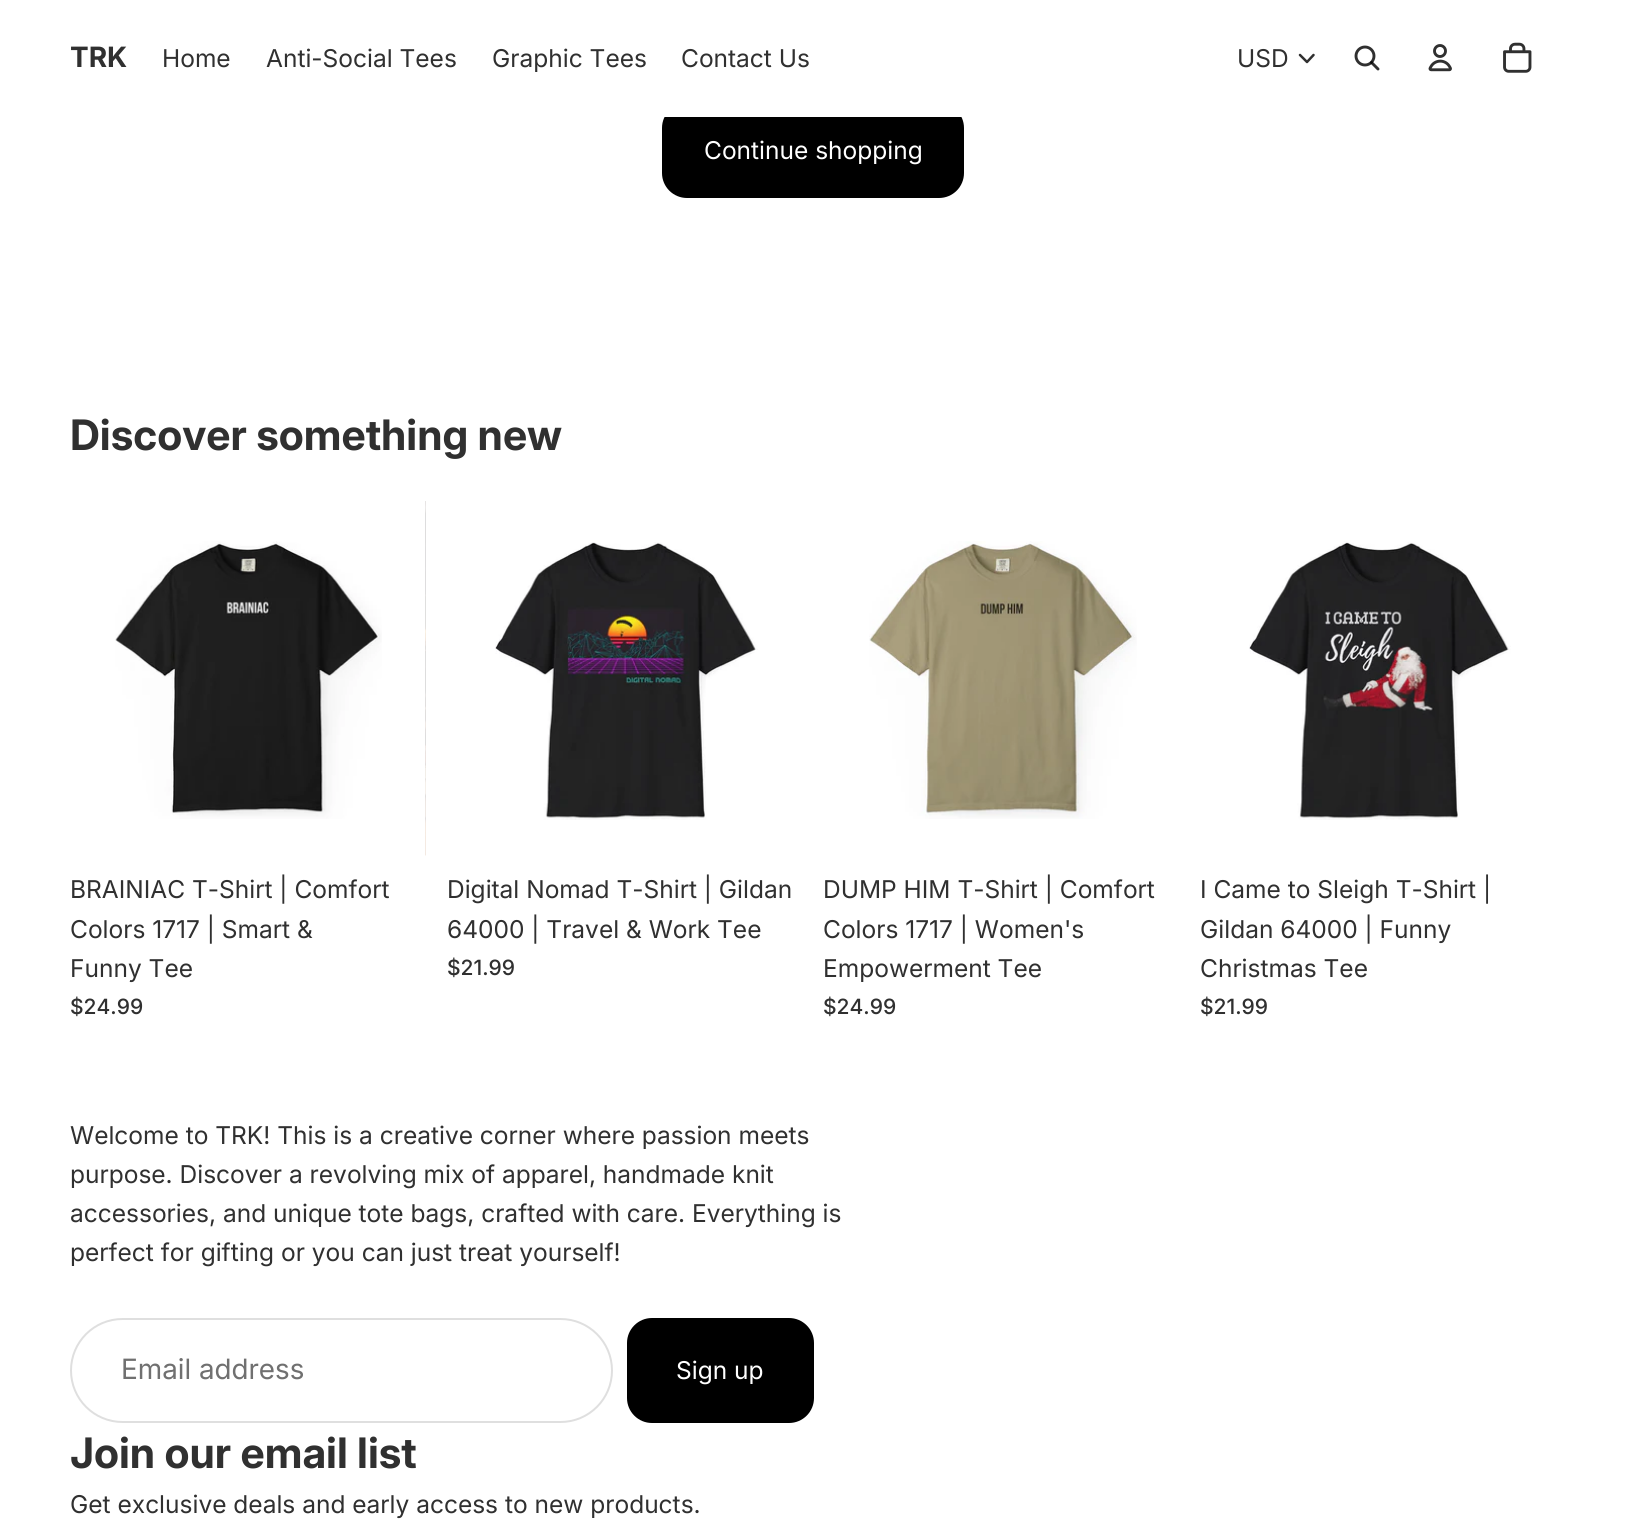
#include <cairo.h>
#include <math.h>
#include <stddef.h>

static cairo_t *c;
static void C(unsigned color){cairo_set_source_rgb(c, (color >> 16) / 255.0, (color >> 8 & 255) / 255.0, (color & 255) / 255.0);}
static void F(const char *family, double size, int italic, int bold){cairo_select_font_face(c, family, italic ? CAIRO_FONT_SLANT_ITALIC : CAIRO_FONT_SLANT_NORMAL,bold ? CAIRO_FONT_WEIGHT_BOLD : CAIRO_FONT_WEIGHT_NORMAL);cairo_set_font_size(c, size);}
static void T(double x, double y, const char *s){cairo_move_to(c, x, y);cairo_show_text(c, s);}
static void R(double x, double y, double w, double h){cairo_rectangle(c, x, y, w, h);cairo_fill(c);}
static void Q(double x, double y, double w, double h, double r){cairo_new_sub_path(c);cairo_arc(c, x + w - r, y + h - r, r, 0, M_PI / 2);cairo_arc(c, x + r, y + h - r, r, M_PI / 2, M_PI);cairo_arc(c, x + r, y + r, r, M_PI, 1.5 * M_PI);cairo_arc(c, x + w - r, y + r, r, 1.5 * M_PI, 2 * M_PI);cairo_close_path(c);}
static void I(const char *path, double x, double y, double w, double h){cairo_surface_t *image = cairo_image_surface_create_from_png(path);cairo_save(c);cairo_set_source_surface(c, image, x, y);cairo_rectangle(c, x, y, w, h);cairo_fill(c);cairo_restore(c);cairo_surface_destroy(image);}
int main(void) {
cairo_surface_t *surface = cairo_image_surface_create(CAIRO_FORMAT_RGB24, 1625, 1521);
c = cairo_create(surface);
cairo_font_options_t *options = cairo_font_options_create();
cairo_font_options_set_hint_metrics(options, CAIRO_HINT_METRICS_OFF);
cairo_font_options_set_hint_style(options, CAIRO_HINT_STYLE_NONE);
cairo_set_font_options(c, options);
cairo_set_miter_limit(c, 4);
C(0xffffff);
cairo_paint(c);
C(0x000000);
Q(662,103,302,95,25);
cairo_fill(c);
C(0xffffff);
R(664,103,298,14);
F("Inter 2",28,0,1);
C(0x303030);
T(70,67,"TRK");
F("Inter",24.5,0,0);
T(162,67,"Home");
T(266,67,"Anti-Social Tees");
T(492,67,"Graphic Tees");
T(681,67,"Contact Us");
T(1237,67,"USD");
cairo_new_path(c);
cairo_move_to(c,1313.5,55);
cairo_line_to(c,1307,62);
cairo_line_to(c,1300,55);
cairo_set_line_width(c,2.5);
cairo_set_line_cap(c,CAIRO_LINE_CAP_ROUND);
cairo_set_line_join(c,CAIRO_LINE_JOIN_ROUND);
cairo_stroke(c);
cairo_arc(c,1365,56,9,0,2 * M_PI);
cairo_set_line_width(c,2.9);
cairo_set_line_cap(c,CAIRO_LINE_CAP_BUTT);
cairo_set_line_join(c,CAIRO_LINE_JOIN_MITER);
cairo_stroke(c);
cairo_new_path(c);
cairo_move_to(c,1371.5,62.5);
cairo_line_to(c,1378,69);
cairo_set_source_rgba(c,0,0,0,0.81);
cairo_set_line_cap(c,CAIRO_LINE_CAP_ROUND);
cairo_set_line_join(c,CAIRO_LINE_JOIN_ROUND);
cairo_stroke(c);
I("1.png",1428,44,24,28);
I("2.png",1503,42,29,31);
C(0xffffff);
T(704,159,"Continue shopping");
F("Inter",42,0,1);
C(0x303030);
T(70,450,"Discover something new");
I("3.png",115,541,267,278);
I("4.png",425,501,1,355);
F("Inter",24.5,0,0);
T(70,898,"BRAINIAC T-Shirt | Comfort");
T(70,938,"Colors 1717 | Smart &");
T(70,977,"Funny Tee");
F("Inter Medium",21,0,0);
T(70,1014,"$24.99");
I("5.png",495,542,263,278);
F("Inter",24.5,0,0);
T(447,898,"Digital Nomad T-Shirt | Gildan");
T(447,938,"64000 | Travel & Work Tee");
F("Inter Medium",21,0,0);
T(447,975,"$21.99");
I("6.png",869,541,268,278);
F("Inter",24.5,0,0);
T(823,898,"DUMP HIM T-Shirt | Comfort");
T(823,938,"Colors 1717 | Women's");
T(823,977,"Empowerment Tee");
F("Inter Medium",21,0,0);
T(823,1014,"$24.99");
I("7.png",1249,541,262,279);
F("Inter",24.5,0,0);
T(1200,898,"I Came to Sleigh T-Shirt |");
T(1200,938,"Gildan 64000 | Funny");
T(1200,977,"Christmas Tee");
F("Inter Medium",21,0,0);
T(1200,1014,"$21.99");
F("Inter",24.5,0,0);
T(70,1144,"Welcome to TRK! This is a creative corner where passion meets");
T(70,1183,"purpose. Discover a revolving mix of apparel, handmade knit");
T(70,1222,"accessories, and unique tote bags, crafted with care. Everything is");
T(70,1261,"perfect for gifting or you can just treat yourself!");
Q(71,1319,541,103,51.5);
C(0xdfdfdf);
cairo_set_line_width(c,2);
cairo_set_line_cap(c,CAIRO_LINE_CAP_BUTT);
cairo_set_line_join(c,CAIRO_LINE_JOIN_MITER);
cairo_stroke(c);
F("Inter 2",28,0,0);
C(0x707070);
T(121,1379,"Email address");
C(0x000000);
Q(627,1318,187,105,25);
cairo_fill(c);
F("Inter",24.5,0,0);
C(0xffffff);
T(676,1379,"Sign up");
F("Inter",42,0,1);
C(0x303030);
T(70,1468,"Join our email list");
F("Inter",24.5,0,0);
T(70,1513,"Get exclusive deals and early access to new products.");
cairo_surface_write_to_png(surface, "o.png");
cairo_font_options_destroy(options);
cairo_destroy(c);
cairo_surface_destroy(surface);
return 0;
}
